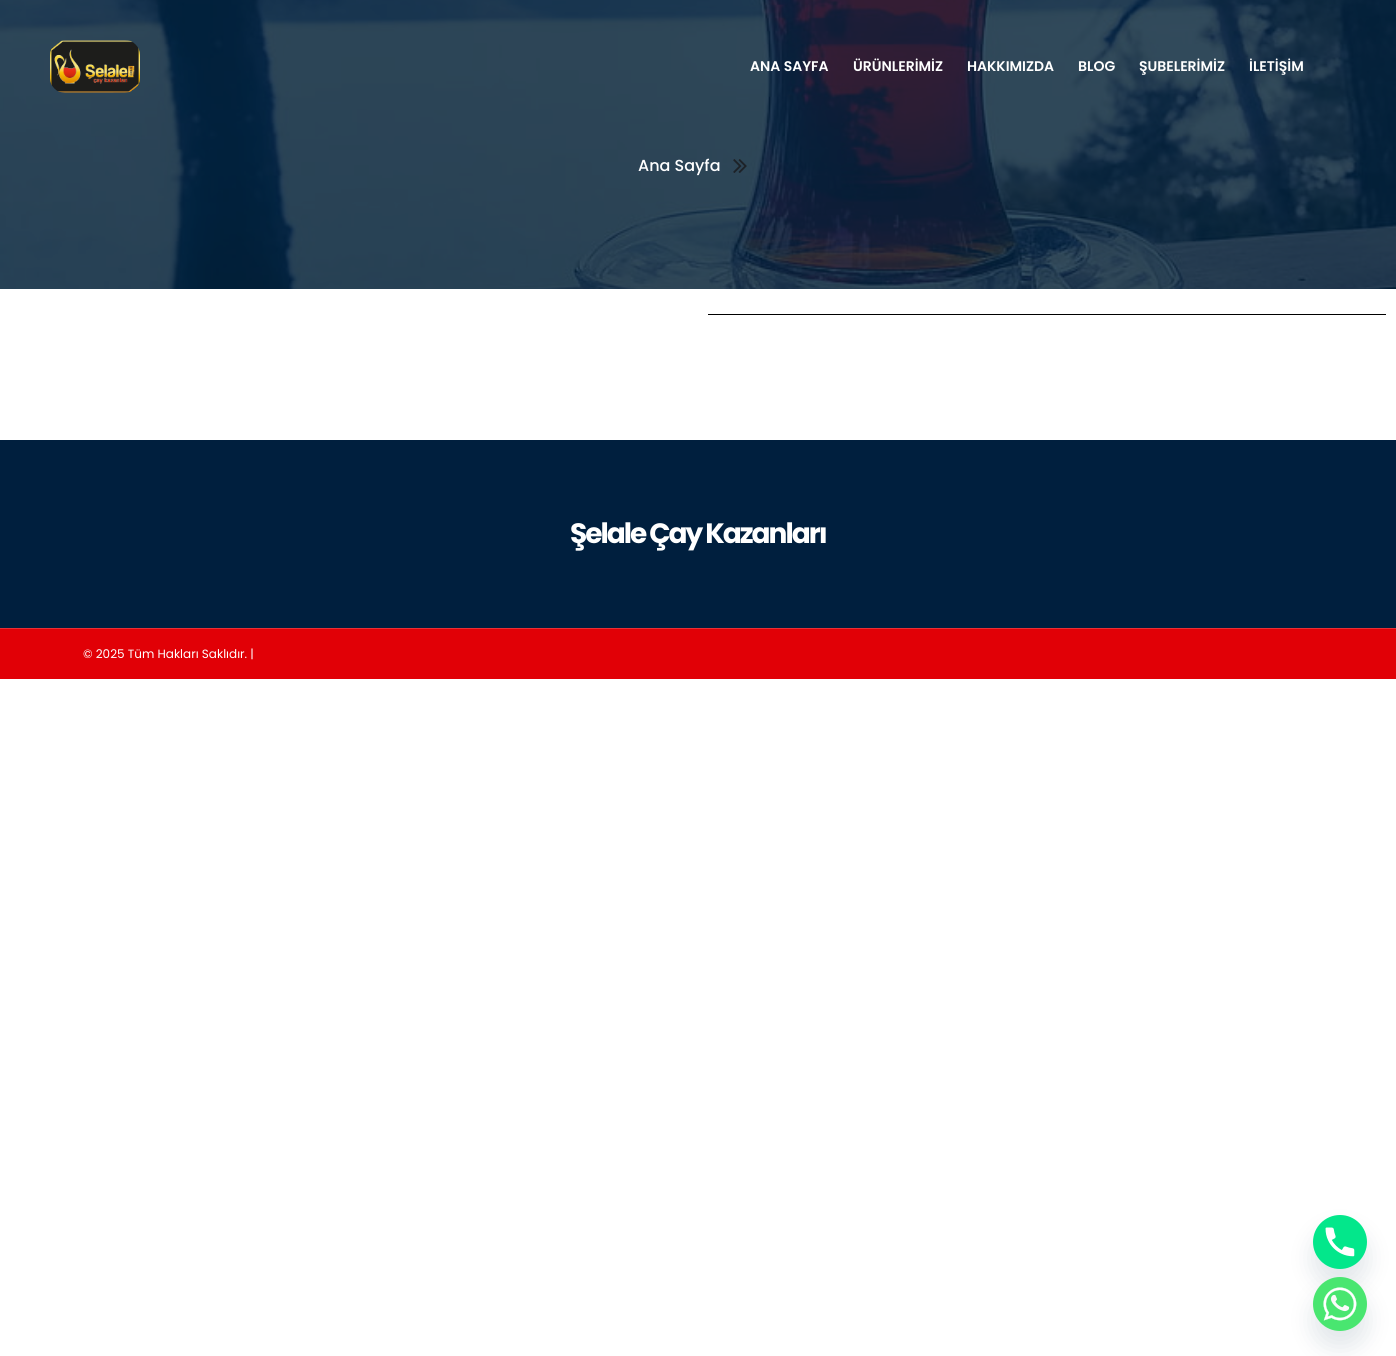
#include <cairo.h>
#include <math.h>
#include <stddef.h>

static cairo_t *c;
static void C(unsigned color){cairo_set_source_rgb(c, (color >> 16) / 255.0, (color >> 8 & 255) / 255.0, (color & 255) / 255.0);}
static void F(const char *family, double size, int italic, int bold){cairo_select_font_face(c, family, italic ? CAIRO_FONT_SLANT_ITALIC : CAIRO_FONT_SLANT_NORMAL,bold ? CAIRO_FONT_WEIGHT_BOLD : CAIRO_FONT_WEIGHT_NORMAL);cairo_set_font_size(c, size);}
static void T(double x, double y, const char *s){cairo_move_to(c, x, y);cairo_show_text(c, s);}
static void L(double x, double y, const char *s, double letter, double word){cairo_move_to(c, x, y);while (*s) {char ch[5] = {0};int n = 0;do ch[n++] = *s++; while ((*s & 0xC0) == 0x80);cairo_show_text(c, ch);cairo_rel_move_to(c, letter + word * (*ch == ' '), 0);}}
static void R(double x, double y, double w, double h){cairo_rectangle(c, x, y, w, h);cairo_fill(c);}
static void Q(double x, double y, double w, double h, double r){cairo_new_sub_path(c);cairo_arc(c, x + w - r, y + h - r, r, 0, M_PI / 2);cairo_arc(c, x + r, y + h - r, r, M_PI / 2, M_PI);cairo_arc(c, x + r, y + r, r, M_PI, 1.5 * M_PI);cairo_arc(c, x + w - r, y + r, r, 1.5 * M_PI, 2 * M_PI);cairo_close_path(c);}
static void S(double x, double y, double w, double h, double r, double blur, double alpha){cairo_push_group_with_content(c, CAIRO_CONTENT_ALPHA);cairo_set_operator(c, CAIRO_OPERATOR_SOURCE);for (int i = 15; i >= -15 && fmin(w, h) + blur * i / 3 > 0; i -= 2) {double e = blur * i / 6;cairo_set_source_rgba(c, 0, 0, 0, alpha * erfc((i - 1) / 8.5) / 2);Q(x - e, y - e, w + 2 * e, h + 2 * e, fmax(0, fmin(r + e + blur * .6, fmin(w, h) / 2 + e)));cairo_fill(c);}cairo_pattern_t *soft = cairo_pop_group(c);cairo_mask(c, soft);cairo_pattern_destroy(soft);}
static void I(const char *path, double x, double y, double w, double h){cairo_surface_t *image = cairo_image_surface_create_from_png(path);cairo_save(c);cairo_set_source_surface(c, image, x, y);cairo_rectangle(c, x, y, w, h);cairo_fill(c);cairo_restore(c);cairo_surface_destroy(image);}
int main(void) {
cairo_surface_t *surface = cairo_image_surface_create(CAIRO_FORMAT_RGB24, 1396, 1356);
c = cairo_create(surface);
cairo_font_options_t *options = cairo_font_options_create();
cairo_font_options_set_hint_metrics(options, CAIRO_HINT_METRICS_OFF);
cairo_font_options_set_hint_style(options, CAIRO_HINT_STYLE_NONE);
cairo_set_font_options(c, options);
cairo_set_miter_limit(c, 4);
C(0xffffff);
cairo_paint(c);
I("2.png",0,0,1396,289);
I("1.png",50,40,90,53);
F("Poppins SemiBold",14,0,0);
C(0xffffff);
T(750,71,"ANA SAYFA");
T(853,71,"ÜRÜNLERİMİZ");
T(967,71,"HAKKIMIZDA");
T(1078,71,"BLOG");
T(1139,71,"ŞUBELERİMİZ");
T(1249,71,"İLETİŞİM");
F("Poppins Medium",16,0,0);
T(638,171,"Ana Sayfa");
I("3.png",733,159,14,14);
C(0x000000);
R(708,314,678,1);
C(0x001f3e);
R(0,440,1396,188);
F("Poppins",28,0,1);
C(0xffffff);
L(570,543,"Şelale Çay Kazanları",-2,0);
C(0xe10006);
R(0,629,1396,50);
C(0xe73035);
R(0,628,1396,1);
F("Poppins",12,0,0);
C(0xffffff);
T(83,658,"© 2025 Tüm Hakları Saklıdır. |");
C(0x49687e);
S(1313,1231,54,54,27,12,.16);
I("4.png",1313,1215,54,54);
S(1313,1293,54,54,27,12,.16);
I("5.png",1313,1277,54,54);
cairo_surface_write_to_png(surface, "o.png");
cairo_font_options_destroy(options);
cairo_destroy(c);
cairo_surface_destroy(surface);
return 0;
}
